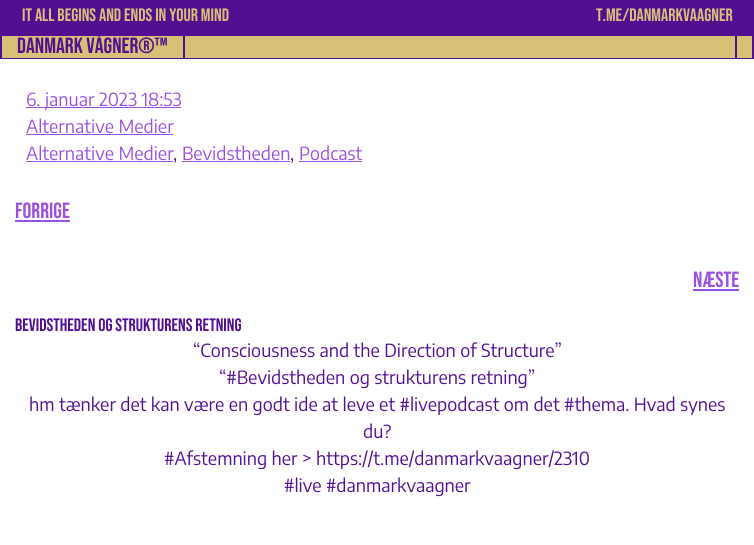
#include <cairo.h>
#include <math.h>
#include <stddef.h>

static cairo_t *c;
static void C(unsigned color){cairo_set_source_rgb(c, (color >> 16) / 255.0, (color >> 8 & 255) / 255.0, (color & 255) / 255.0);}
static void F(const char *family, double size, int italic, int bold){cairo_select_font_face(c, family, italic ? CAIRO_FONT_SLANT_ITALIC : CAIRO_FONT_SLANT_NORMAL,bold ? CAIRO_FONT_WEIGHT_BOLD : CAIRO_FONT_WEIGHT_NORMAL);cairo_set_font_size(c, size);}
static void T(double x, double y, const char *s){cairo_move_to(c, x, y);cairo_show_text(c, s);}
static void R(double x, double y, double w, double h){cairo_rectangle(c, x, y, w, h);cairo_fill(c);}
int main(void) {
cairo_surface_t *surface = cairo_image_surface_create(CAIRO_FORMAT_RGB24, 754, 545);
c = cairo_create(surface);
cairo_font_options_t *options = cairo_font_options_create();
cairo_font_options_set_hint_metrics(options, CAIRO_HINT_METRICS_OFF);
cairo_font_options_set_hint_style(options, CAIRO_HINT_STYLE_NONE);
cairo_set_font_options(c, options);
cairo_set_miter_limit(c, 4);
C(0xffffff);
cairo_paint(c);
C(0x530f92);
R(0,0,754,36);
F("Bebas Neue",18,0,0);
C(0xd9c077);
T(22,21,"IT ALL BEGINS AND ENDS IN YOUR MIND");
T(596,21,"t.me/danmarkvaagner");
R(2,36,750,22);
C(0x530f92);
R(752,34,2,25);
R(0,58,754,1);
R(0,34,2,25);
R(183,36,2,22);
F("Bebas Neue",22,0,0);
T(17,53,"DANMARK VÅGNER®™");
R(735,36,2,22);
C(0x9b51e0);
R(26,107,155,1);
F("Encode Sans",18,0,0);
T(26,106,"6. januar 2023 18:53");
T(26,133,"Alternative Medier");
R(26,134,147,1);
T(26,160,"Alternative Medier");
R(26,161,147,1);
C(0x530f92);
T(173,160,",");
C(0x9b51e0);
T(182,160,"Bevidstheden");
R(182,161,108,1);
C(0x530f92);
T(290,160,",");
C(0x9b51e0);
T(299,160,"Podcast");
R(299,161,63,1);
F("Bebas Neue",22,0,0);
T(15,218,"Forrige");
R(15,220,55,2);
T(693,287,"Næste");
R(693,289,46,2);
F("Bebas Neue",18,0,0);
C(0x530f92);
T(15,331,"Bevidstheden og strukturens retning");
F("Encode Sans",18,0,0);
T(193,357,"“Consciousness and the Direction of Structure”");
T(219,384,"“#Bevidstheden og strukturens retning”");
T(29,411,"hm tænker det kan være en godt ide at leve et #livepodcast om det #thema. Hvad synes");
T(363,438,"du?");
T(164,465,"#Afstemning her > https://t.me/danmarkvaagner/2310");
T(284,492,"#live #danmarkvaagner");
cairo_surface_write_to_png(surface, "o.png");
cairo_font_options_destroy(options);
cairo_destroy(c);
cairo_surface_destroy(surface);
return 0;
}
